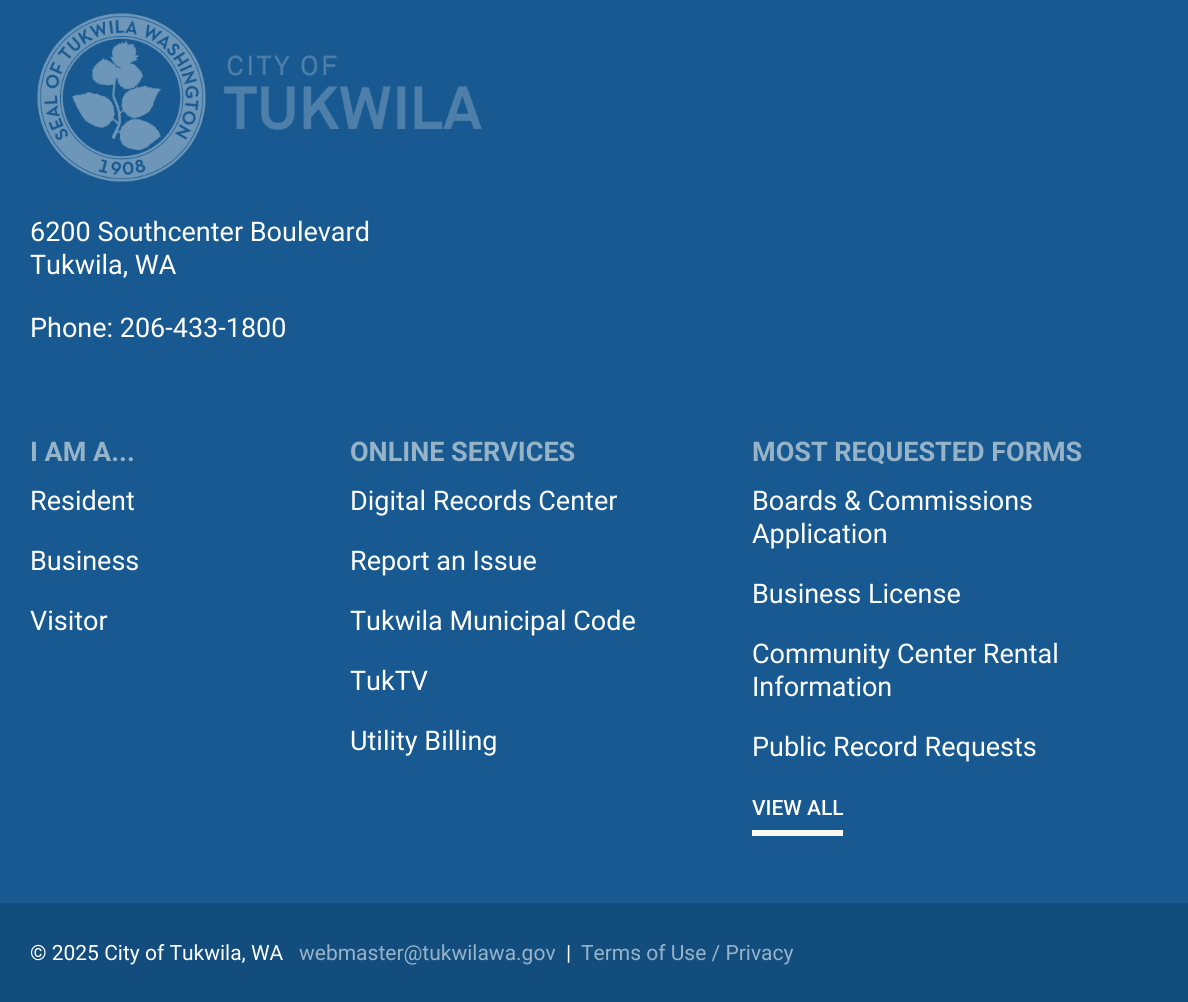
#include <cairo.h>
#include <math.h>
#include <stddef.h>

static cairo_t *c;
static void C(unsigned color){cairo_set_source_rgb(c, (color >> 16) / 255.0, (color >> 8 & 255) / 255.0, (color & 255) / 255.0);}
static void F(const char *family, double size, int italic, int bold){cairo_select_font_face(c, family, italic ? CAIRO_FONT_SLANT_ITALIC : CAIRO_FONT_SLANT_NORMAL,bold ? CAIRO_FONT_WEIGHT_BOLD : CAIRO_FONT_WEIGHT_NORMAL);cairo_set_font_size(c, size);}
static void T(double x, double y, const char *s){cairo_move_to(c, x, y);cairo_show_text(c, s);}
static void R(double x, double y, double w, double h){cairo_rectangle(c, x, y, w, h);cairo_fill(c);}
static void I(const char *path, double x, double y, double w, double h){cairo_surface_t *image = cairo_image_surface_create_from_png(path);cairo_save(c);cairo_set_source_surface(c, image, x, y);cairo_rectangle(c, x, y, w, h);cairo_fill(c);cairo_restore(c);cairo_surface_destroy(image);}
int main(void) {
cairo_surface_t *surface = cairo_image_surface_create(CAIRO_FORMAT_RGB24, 1188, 1002);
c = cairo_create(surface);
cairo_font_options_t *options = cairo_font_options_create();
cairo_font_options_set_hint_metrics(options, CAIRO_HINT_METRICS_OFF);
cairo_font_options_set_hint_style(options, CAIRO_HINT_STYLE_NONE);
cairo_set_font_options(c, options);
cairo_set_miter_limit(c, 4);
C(0x175990);
cairo_paint(c);
I("1.png",37,13,445,169);
F("Roboto",27,0,0);
C(0xffffff);
T(30,241,"6200 Southcenter Boulevard");
T(30,274,"Tukwila, WA");
T(30,337,"Phone: 206-433-1800");
F("Roboto",27,0,1);
C(0x97b3c8);
T(30,461,"I AM A...");
F("Roboto",27,0,0);
C(0xffffff);
T(30,510,"Resident");
T(30,570,"Business");
T(30,630,"Visitor");
F("Roboto",27,0,1);
C(0x97b3c8);
T(350,461,"ONLINE SERVICES");
F("Roboto",27,0,0);
C(0xffffff);
T(350,510,"Digital Records Center");
T(350,570,"Report an Issue");
T(350,630,"Tukwila Municipal Code");
T(350,690,"TukTV");
T(350,750,"Utility Billing");
F("Roboto",27,0,1);
C(0x97b3c8);
T(752,461,"MOST REQUESTED FORMS");
F("Roboto",27,0,0);
C(0xffffff);
T(752,510,"Boards & Commissions");
T(752,543,"Application");
T(752,603,"Business License");
T(752,663,"Community Center Rental");
T(752,696,"Information");
T(752,756,"Public Record Requests");
F("Roboto Medium",21,0,0);
T(752,815,"VIEW ALL");
C(0xfbf9f3);
R(752,830,91,6);
C(0x124d7e);
R(0,903,1188,99);
F("Roboto",21,0,0);
C(0xffffff);
T(30,960,"© 2025 City of Tukwila, WA");
C(0x97b3c8);
T(299,960,"webmaster@tukwilawa.gov");
C(0xffffff);
T(566,960,"|");
C(0x97b3c8);
T(581,960,"Terms of Use / Privacy");
cairo_surface_write_to_png(surface, "o.png");
cairo_font_options_destroy(options);
cairo_destroy(c);
cairo_surface_destroy(surface);
return 0;
}
